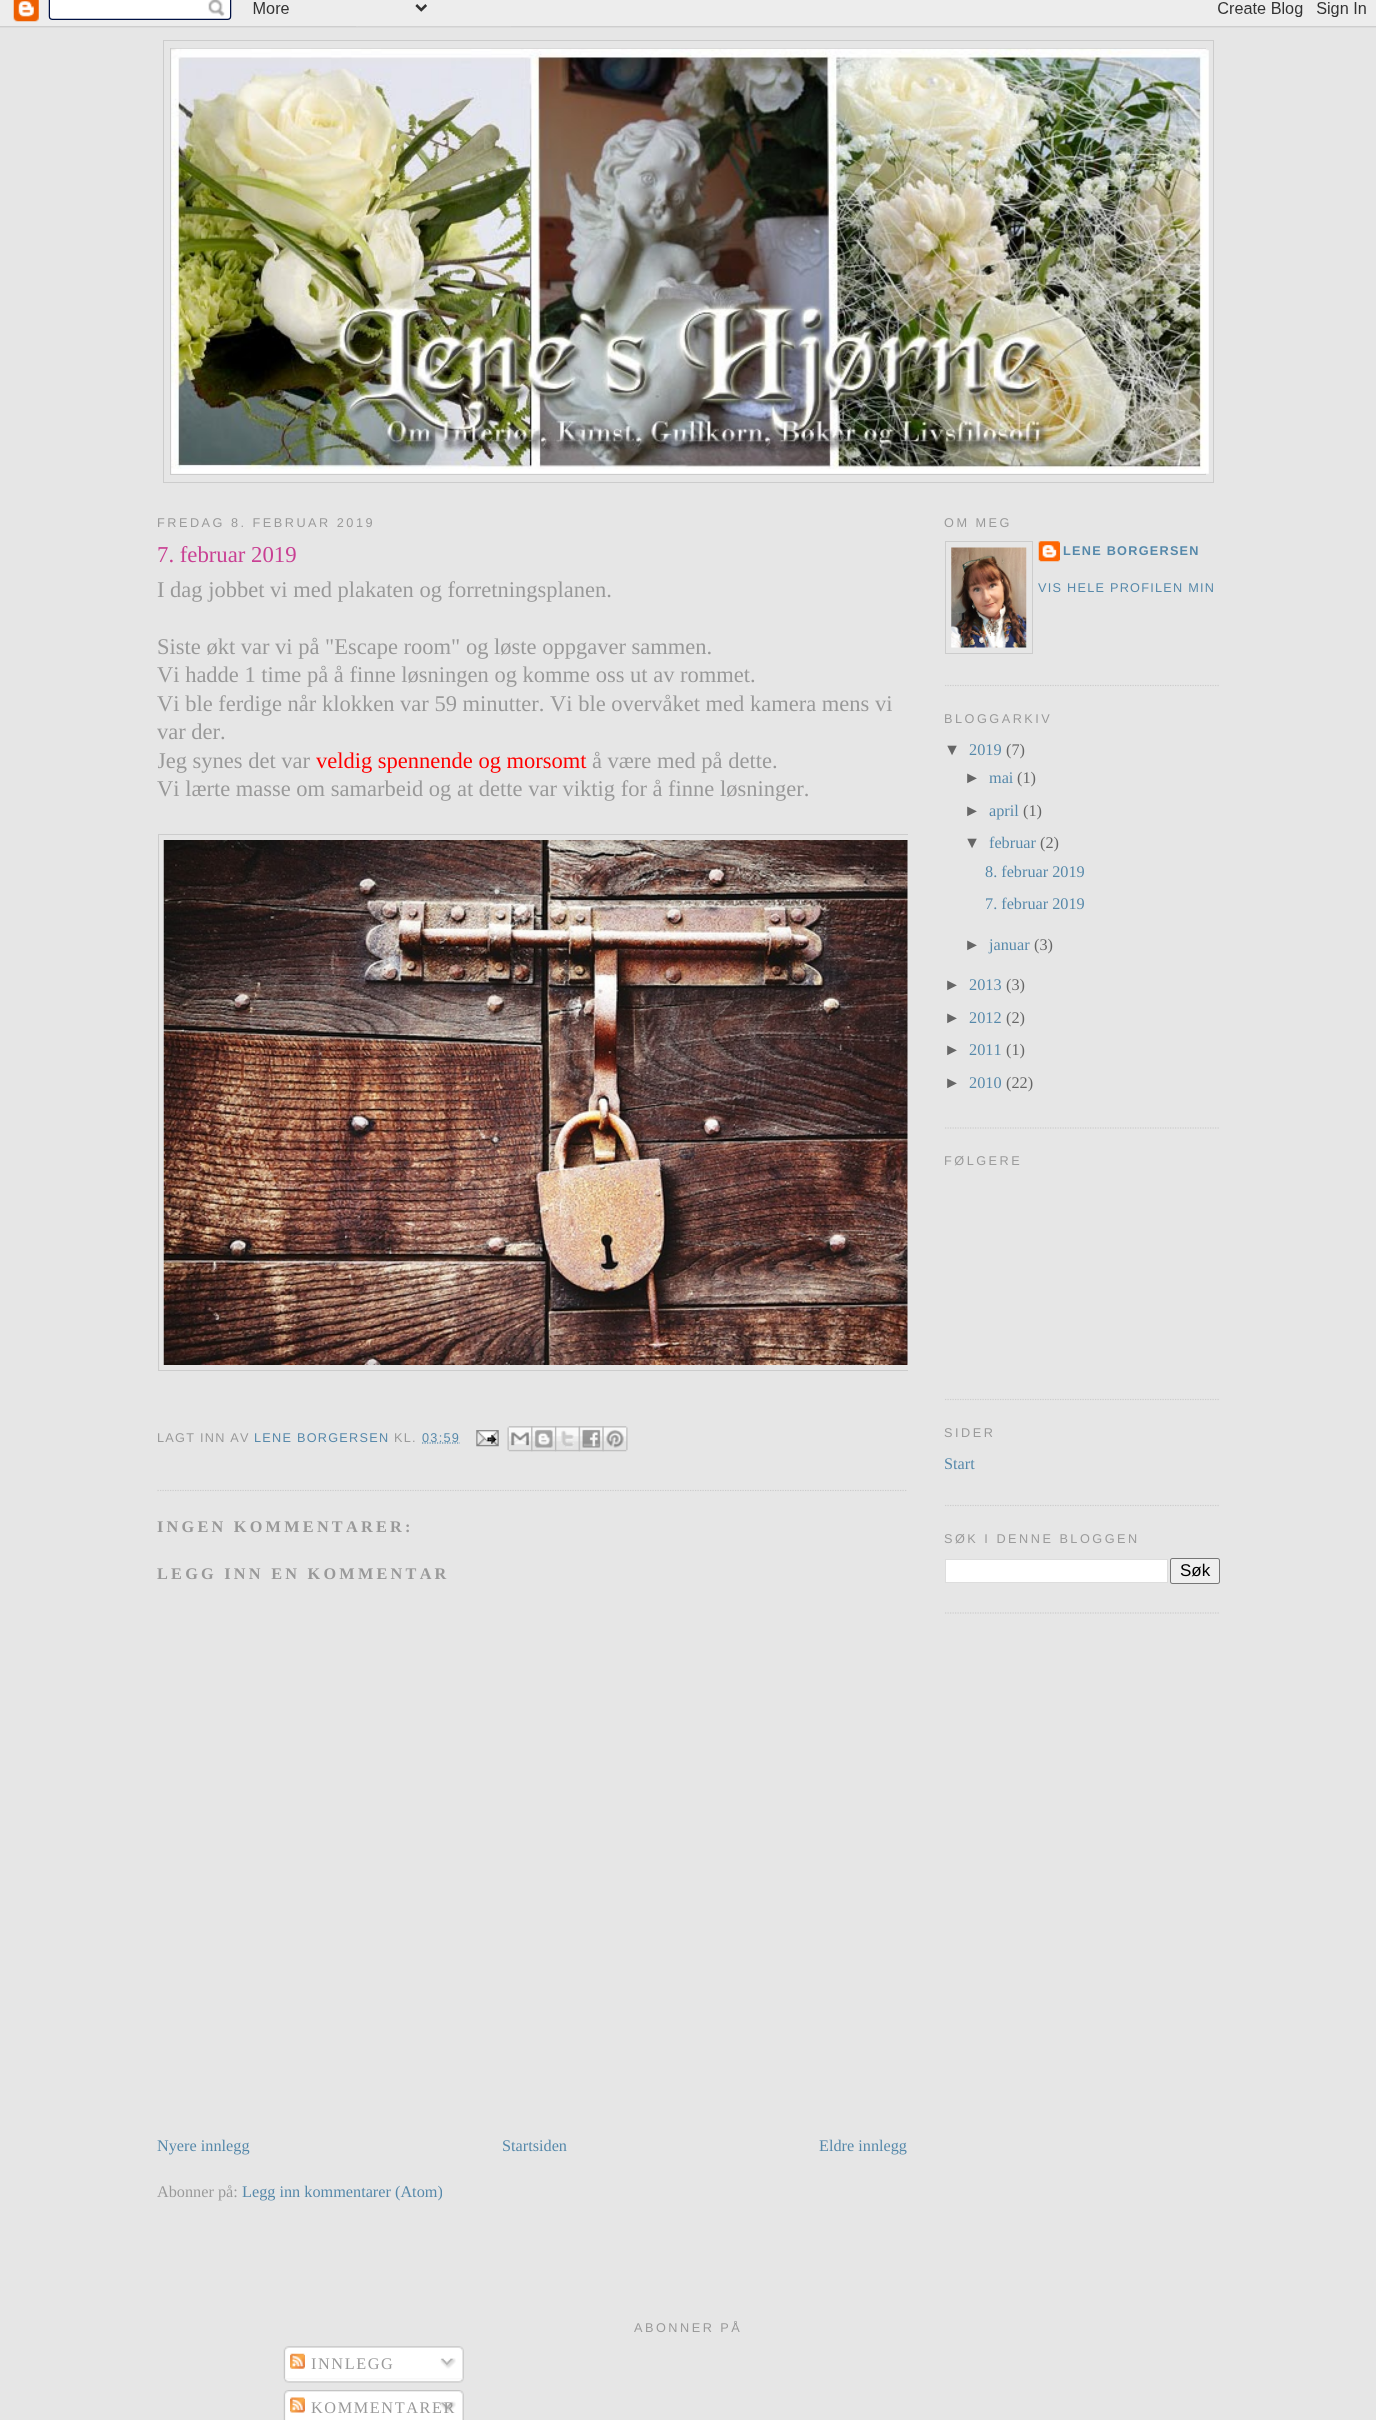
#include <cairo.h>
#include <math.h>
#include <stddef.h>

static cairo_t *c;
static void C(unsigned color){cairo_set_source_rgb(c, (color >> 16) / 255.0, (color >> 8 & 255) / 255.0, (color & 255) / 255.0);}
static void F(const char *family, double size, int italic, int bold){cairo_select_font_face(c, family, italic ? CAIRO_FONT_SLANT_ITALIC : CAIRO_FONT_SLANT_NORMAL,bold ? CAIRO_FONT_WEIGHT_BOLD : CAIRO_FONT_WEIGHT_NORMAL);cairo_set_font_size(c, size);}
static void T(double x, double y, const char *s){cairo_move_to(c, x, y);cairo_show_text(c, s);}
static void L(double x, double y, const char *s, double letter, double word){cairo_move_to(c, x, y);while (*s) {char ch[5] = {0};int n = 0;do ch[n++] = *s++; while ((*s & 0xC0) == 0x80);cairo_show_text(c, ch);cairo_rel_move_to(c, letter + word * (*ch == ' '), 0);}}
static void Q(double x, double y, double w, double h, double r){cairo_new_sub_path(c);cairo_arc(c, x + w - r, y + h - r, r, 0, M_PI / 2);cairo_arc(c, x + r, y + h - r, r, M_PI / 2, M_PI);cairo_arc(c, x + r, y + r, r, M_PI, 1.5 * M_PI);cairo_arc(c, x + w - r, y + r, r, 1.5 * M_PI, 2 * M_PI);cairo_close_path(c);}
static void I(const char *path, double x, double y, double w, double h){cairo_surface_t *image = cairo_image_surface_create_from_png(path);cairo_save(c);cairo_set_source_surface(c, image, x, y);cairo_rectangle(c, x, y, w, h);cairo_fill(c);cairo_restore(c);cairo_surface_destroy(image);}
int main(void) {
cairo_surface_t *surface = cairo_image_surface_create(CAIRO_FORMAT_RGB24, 1376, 2420);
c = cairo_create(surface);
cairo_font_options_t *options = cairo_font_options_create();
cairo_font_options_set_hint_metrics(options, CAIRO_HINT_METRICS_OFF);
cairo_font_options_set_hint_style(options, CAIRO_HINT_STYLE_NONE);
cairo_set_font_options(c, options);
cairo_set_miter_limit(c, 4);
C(0xe6e6e6);
cairo_paint(c);
I("1.png",0,0,1376,28);
cairo_rectangle(c,163.5,40.5,1050,442);
C(0xcccccc);
cairo_set_line_width(c,1);
cairo_stroke(c);
cairo_rectangle(c,170.5,48.5,1035,426);
cairo_stroke(c);
I("2.png",171,48,1038,426);
cairo_save(c);
cairo_rectangle(c,158,495,750,1766);
cairo_clip(c);
F("Liberation Sans",12.7,0,0);
C(0x999999);
L(157,527,"FREDAG 8. FEBRUAR 2019",2.5,0);
cairo_restore(c);
cairo_new_path(c);
cairo_move_to(c,157.5,1490.5);
cairo_line_to(c,907.5,1490.5);
cairo_set_line_width(c,1.2);
cairo_set_dash(c,(double[]){1.25,1.25},2,0);
cairo_stroke(c);
F("Liberation Serif",22.75,0,0);
C(0xc94093);
T(157,562,"7. februar 2019");
F("Liberation Serif",22.5,0,0);
C(0x999999);
T(157,597,"I dag jobbet vi med plakaten og forretningsplanen.");
T(157,654,"Siste økt var vi på \"Escape room\" og løste oppgaver sammen.");
T(157,682,"Vi hadde 1 time på å finne løsningen og komme oss ut av rommet.");
T(157,711,"Vi ble ferdige når klokken var 59 minutter. Vi ble overvåket med kamera mens vi");
T(157,739,"var der.");
cairo_save(c);
cairo_rectangle(c,158,495,750,1766);
cairo_clip(c);
T(157,768,"Jeg synes det var");
cairo_restore(c);
C(0xff0000);
T(316,768,"veldig spennende og morsomt");
C(0x999999);
T(592,768,"å være med på dette.");
T(157,796,"Vi lærte masse om samarbeid og at dette var viktig for å finne løsninger.");
cairo_save(c);
cairo_rectangle(c,158,495,750,1766);
cairo_clip(c);
cairo_rectangle(c,158.5,834.5,886,536);
C(0xcccccc);
cairo_set_line_width(c,1);
cairo_set_dash(c,NULL,0,0);
cairo_stroke(c);
cairo_restore(c);
I("3.png",163,840,745,525);
cairo_save(c);
cairo_rectangle(c,158,495,750,1766);
cairo_clip(c);
F("Liberation Sans",12.7,0,0);
L(157,1442,"LAGT INN AV",1.25,0);
cairo_restore(c);
F("Liberation Sans",12.7,0,0);
C(0x5588aa);
L(254,1442,"LENE BORGERSEN",1.25,0);
C(0x999999);
L(394,1442,"KL.",1.25,0);
cairo_new_path(c);
cairo_move_to(c,422,1443);
cairo_line_to(c,460,1443);
C(0x5588aa);
cairo_stroke(c);
L(422,1442,"03:59",1.25,0);
I("4.png",476,1430,23,17);
I("5.png",507,1426,26,26);
I("6.png",531,1426,26,26);
I("7.png",555,1426,25,26);
I("8.png",578,1426,26,26);
I("9.png",602,1426,26,26);
F("Liberation Serif",16.25,0,1);
C(0x999999);
L(157,1532,"INGEN KOMMENTARER:",3.25,0);
L(157,1579,"LEGG INN EN KOMMENTAR",3.25,0);
F("Liberation Serif",16.25,0,0);
C(0x5588aa);
T(157,2151,"Nyere innlegg");
T(502,2151,"Startsiden");
T(819,2151,"Eldre innlegg");
C(0x999999);
T(157,2197,"Abonner på:");
C(0x5588aa);
T(242,2197,"Legg inn kommentarer (Atom)");
cairo_new_path(c);
cairo_move_to(c,945,685.5);
cairo_line_to(c,1220,685.5);
C(0xcccccc);
cairo_stroke(c);
F("Liberation Sans",12.7,0,0);
C(0x999999);
L(944,527,"OM MEG",2.5,0);
cairo_rectangle(c,945.5,541.5,87,112);
C(0xcccccc);
cairo_set_line_width(c,1);
cairo_set_dash(c,NULL,0,0);
cairo_stroke(c);
I("10.png",951,547,76,101);
I("11.png",1038,541,22,21);
F("Liberation Sans",12.7,0,1);
C(0x5588aa);
L(1063,555,"LENE BORGERSEN",1.25,0);
F("Liberation Sans",12.7,0,0);
L(1038,592,"VIS HELE PROFILEN MIN",1.25,0);
cairo_new_path(c);
cairo_move_to(c,945,1128);
cairo_line_to(c,1220,1128);
C(0xcccccc);
cairo_set_line_width(c,1.2);
cairo_set_dash(c,(double[]){1.25,1.25},2,0);
cairo_stroke(c);
C(0x999999);
L(944,723,"BLOGGARKIV",2.5,0);
F("Liberation Sans",16.25,0,0);
C(0x666666);
T(944,755,"▼");
F("Liberation Serif",16.25,0,0);
C(0x5588aa);
T(969,755,"2019");
C(0x666666);
T(1006,755,"(7)");
F("Liberation Sans",16.25,0,0);
T(964,783,"►");
F("Liberation Serif",16.25,0,0);
C(0x5588aa);
T(989,783,"mai");
C(0x666666);
T(1017,783,"(1)");
F("Liberation Sans",16.25,0,0);
T(964,816,"►");
F("Liberation Serif",16.25,0,0);
C(0x5588aa);
T(989,816,"april");
C(0x666666);
T(1023,816,"(1)");
F("Liberation Sans",16.25,0,0);
T(964,848,"▼");
F("Liberation Serif",16.25,0,0);
C(0x5588aa);
T(989,848,"februar");
C(0x666666);
T(1040,848,"(2)");
C(0x5588aa);
T(985,877,"8. februar 2019");
T(985,909,"7. februar 2019");
F("Liberation Sans",16.25,0,0);
C(0x666666);
T(964,950,"►");
F("Liberation Serif",16.25,0,0);
C(0x5588aa);
T(989,950,"januar");
C(0x666666);
T(1034,950,"(3)");
F("Liberation Sans",16.25,0,0);
T(944,990,"►");
F("Liberation Serif",16.25,0,0);
C(0x5588aa);
T(969,990,"2013");
C(0x666666);
T(1006,990,"(3)");
F("Liberation Sans",16.25,0,0);
T(944,1023,"►");
F("Liberation Serif",16.25,0,0);
C(0x5588aa);
T(969,1023,"2012");
C(0x666666);
T(1006,1023,"(2)");
F("Liberation Sans",16.25,0,0);
T(944,1055,"►");
F("Liberation Serif",16.25,0,0);
C(0x5588aa);
T(969,1055,"2011");
C(0x666666);
T(1006,1055,"(1)");
F("Liberation Sans",16.25,0,0);
T(944,1088,"►");
F("Liberation Serif",16.25,0,0);
C(0x5588aa);
T(969,1088,"2010");
C(0x666666);
T(1006,1088,"(22)");
cairo_new_path(c);
cairo_move_to(c,945,1399.5);
cairo_line_to(c,1220,1399.5);
C(0xcccccc);
cairo_stroke(c);
F("Liberation Sans",12.7,0,0);
C(0x999999);
L(944,1165,"FØLGERE",2.5,0);
cairo_new_path(c);
cairo_move_to(c,945,1505.5);
cairo_line_to(c,1220,1505.5);
C(0xcccccc);
cairo_stroke(c);
C(0x999999);
L(944,1437,"SIDER",2.5,0);
F("Liberation Serif",16.25,0,0);
C(0x5588aa);
T(944,1469,"Start");
cairo_new_path(c);
cairo_move_to(c,945,1613);
cairo_line_to(c,1220,1613);
C(0xcccccc);
cairo_stroke(c);
F("Liberation Sans",12.7,0,0);
C(0x999999);
L(944,1543,"SØK I DENNE BLOGGEN",2.5,0);
C(0xffffff);
cairo_rectangle(c,945.5,1559.5,222,23);
cairo_fill_preserve(c);
C(0xdddddd);
cairo_set_line_width(c,1);
cairo_set_dash(c,NULL,0,0);
cairo_stroke(c);
C(0xefefef);
Q(1170.5,1558.5,49,25,2);
cairo_fill_preserve(c);
C(0x767676);
cairo_stroke(c);
F("Liberation Sans",17,0,0);
C(0x000000);
T(1180,1576,"Søk");
F("Liberation Sans",12.7,0,0);
C(0x999999);
L(634,2332,"ABONNER PÅ",2.5,0);
I("12.png",283,2346,181,33);
I("13.png",290,2353,15,16);
F("Liberation Serif",16.25,0,0);
L(311,2369,"INNLEGG",1.6,0);
I("14.png",440,2358,16,11);
I("15.png",284,2379,180,4);
I("16.png",283,2390,181,30);
I("17.png",290,2397,15,16);
I("18.png",440,2401,16,12);
L(311,2413,"KOMMENTARER",1.6,0);
cairo_surface_write_to_png(surface, "o.png");
cairo_font_options_destroy(options);
cairo_destroy(c);
cairo_surface_destroy(surface);
return 0;
}
